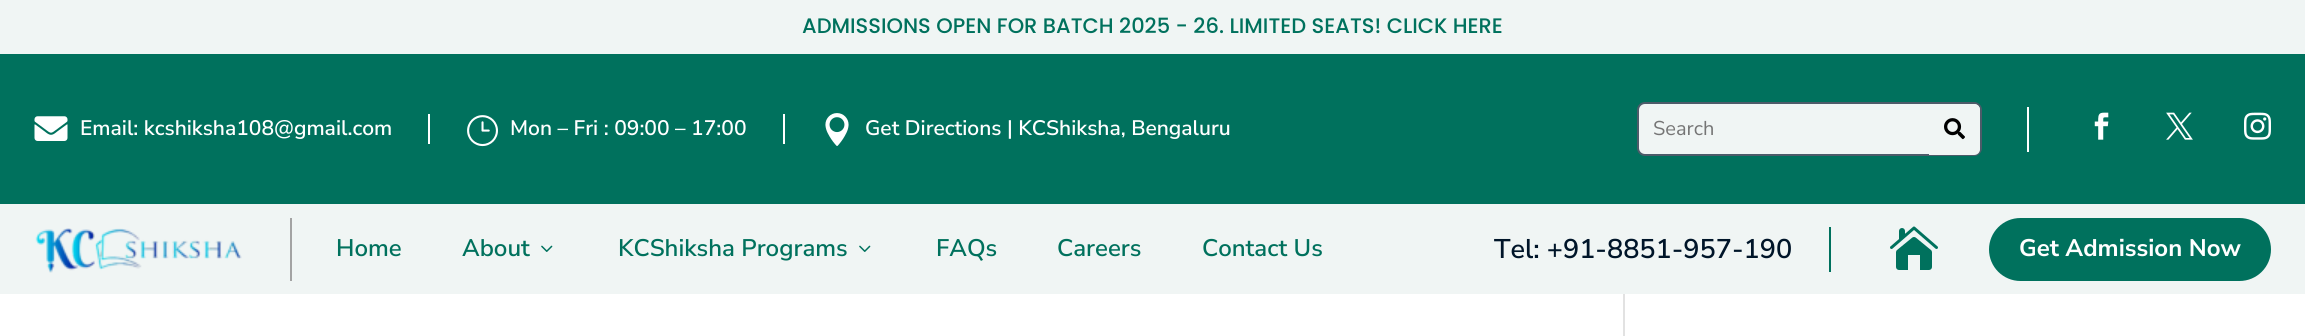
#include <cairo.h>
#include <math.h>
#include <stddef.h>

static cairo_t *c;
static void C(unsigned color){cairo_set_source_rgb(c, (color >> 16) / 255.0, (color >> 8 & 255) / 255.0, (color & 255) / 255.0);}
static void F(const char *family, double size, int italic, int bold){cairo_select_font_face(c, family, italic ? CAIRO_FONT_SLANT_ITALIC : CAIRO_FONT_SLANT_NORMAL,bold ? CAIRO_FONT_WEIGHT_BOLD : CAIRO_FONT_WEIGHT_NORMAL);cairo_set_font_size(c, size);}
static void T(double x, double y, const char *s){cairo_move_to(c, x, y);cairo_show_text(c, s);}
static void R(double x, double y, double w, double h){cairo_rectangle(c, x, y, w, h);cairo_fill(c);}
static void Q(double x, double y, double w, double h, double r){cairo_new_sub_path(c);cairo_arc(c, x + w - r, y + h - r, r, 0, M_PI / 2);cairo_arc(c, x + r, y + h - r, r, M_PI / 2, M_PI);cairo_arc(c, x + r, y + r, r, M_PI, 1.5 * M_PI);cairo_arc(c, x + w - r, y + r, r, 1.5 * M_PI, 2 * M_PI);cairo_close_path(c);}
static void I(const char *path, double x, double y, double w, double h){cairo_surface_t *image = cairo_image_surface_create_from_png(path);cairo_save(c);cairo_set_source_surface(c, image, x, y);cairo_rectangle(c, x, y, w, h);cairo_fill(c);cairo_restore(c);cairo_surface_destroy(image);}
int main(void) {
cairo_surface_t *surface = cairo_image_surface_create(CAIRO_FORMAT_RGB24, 2305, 336);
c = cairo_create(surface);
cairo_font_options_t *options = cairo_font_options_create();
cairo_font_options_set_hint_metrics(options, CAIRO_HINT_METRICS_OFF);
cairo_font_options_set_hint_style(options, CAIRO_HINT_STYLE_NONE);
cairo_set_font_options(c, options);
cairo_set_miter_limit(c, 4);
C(0xffffff);
cairo_paint(c);
C(0xf0f5f4);
R(0,0,2305,54);
F("Poppins Medium",21,0,0);
C(0x00715d);
T(802,33,"ADMISSIONS OPEN FOR BATCH 2025 - 26. LIMITED SEATS! CLICK HERE");
C(0xf0f5f4);
R(0,204,2305,90);
C(0x00715d);
R(0,54,2305,150);
I("1.png",34,116,34,25);
F("Nunito Sans SemiBold",21,0,0);
C(0xffffff);
T(80,135,"Email: kcshiksha108@gmail.com");
R(428,114,2,30);
I("2.png",467,115,31,32);
T(510,135,"Mon – Fri : 09:00 – 17:00");
R(783,114,2,30);
I("3.png",825,113,24,33);
T(865,135,"Get Directions | KCShiksha, Bengaluru");
C(0xf0f5f4);
Q(1638,103,343,52,7);
cairo_fill_preserve(c);
C(0x4d5b69);
cairo_stroke(c);
F("Nunito Sans",20,0,0);
C(0x757575);
T(1653,135,"Search");
C(0xf0f5f4);
cairo_new_path(c);
cairo_move_to(c,1929,104);
cairo_line_to(c,1974,104);
cairo_curve_to(c,1977.5,104,1980,106.5,1980,110);
cairo_line_to(c,1980,149);
cairo_curve_to(c,1980,152.5,1977.5,155,1974,155);
cairo_line_to(c,1929,155);
cairo_close_path(c);
cairo_fill(c);
I("4.png",1944,118,21,22);
C(0xffffff);
R(2027,107,2,45);
I("5.png",2094,112,15,28);
I("6.png",2166,112,27,28);
I("7.png",2244,112,27,28);
I("8.png",35,228,207,45);
C(0xa3a3a3);
R(290,218,2,63);
F("Nunito Sans SemiBold",24,0,0);
C(0x00715d);
T(336,256,"Home");
T(462,256,"About");
I("9.png",541,245,12,7);
T(618,256,"KCShiksha Programs");
I("9.png",859,245,12,7);
T(936,256,"FAQs");
T(1057,256,"Careers");
T(1202,256,"Contact Us");
F("Nunito Sans SemiBold",27,0,0);
C(0x001529);
T(1494,258,"Tel: +91-8851-957-190");
C(0x00715d);
R(1829,227,2,45);
I("10.png",1890,226,48,44);
Q(1989,218,282,63,31.5);
cairo_fill(c);
F("Nunito Sans",24,0,1);
C(0xffffff);
T(2019,256,"Get Admission Now");
C(0xe2e2e2);
R(1623,294,2,42);
cairo_surface_write_to_png(surface, "o.png");
cairo_font_options_destroy(options);
cairo_destroy(c);
cairo_surface_destroy(surface);
return 0;
}
